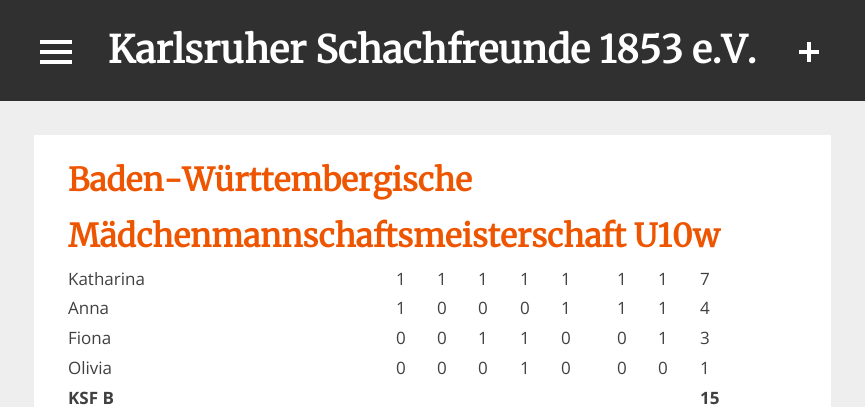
#include <cairo.h>
#include <math.h>
#include <stddef.h>

static cairo_t *c;
static void C(unsigned color){cairo_set_source_rgb(c, (color >> 16) / 255.0, (color >> 8 & 255) / 255.0, (color & 255) / 255.0);}
static void F(const char *family, double size, int italic, int bold){cairo_select_font_face(c, family, italic ? CAIRO_FONT_SLANT_ITALIC : CAIRO_FONT_SLANT_NORMAL,bold ? CAIRO_FONT_WEIGHT_BOLD : CAIRO_FONT_WEIGHT_NORMAL);cairo_set_font_size(c, size);}
static void T(double x, double y, const char *s){cairo_move_to(c, x, y);cairo_show_text(c, s);}
static void R(double x, double y, double w, double h){cairo_rectangle(c, x, y, w, h);cairo_fill(c);}
static void I(const char *path, double x, double y, double w, double h){cairo_surface_t *image = cairo_image_surface_create_from_png(path);cairo_save(c);cairo_set_source_surface(c, image, x, y);cairo_rectangle(c, x, y, w, h);cairo_fill(c);cairo_restore(c);cairo_surface_destroy(image);}
int main(void) {
cairo_surface_t *surface = cairo_image_surface_create(CAIRO_FORMAT_RGB24, 865, 407);
c = cairo_create(surface);
cairo_font_options_t *options = cairo_font_options_create();
cairo_font_options_set_hint_metrics(options, CAIRO_HINT_METRICS_OFF);
cairo_font_options_set_hint_style(options, CAIRO_HINT_STYLE_NONE);
cairo_set_font_options(c, options);
cairo_set_miter_limit(c, 4);
C(0xeeeeee);
cairo_paint(c);
C(0x303030);
R(0,0,865,101);
I("1.png",40,40,32,24);
F("Merriweather",38,0,1);
C(0xffffff);
T(108,63,"Karlsruher Schachfreunde 1853 e.V.");
I("2.png",799,42,20,20);
R(34,135,797,272);
F("Merriweather",32,0,1);
C(0xee5500);
T(68,191,"Baden-Württembergische");
T(68,247,"Mädchenmannschaftsmeisterschaft U10w");
F("Open Sans",17,0,0);
C(0x404040);
T(68,285,"Katharina");
T(396,285,"1");
T(437,285,"1");
T(478,285,"1");
T(520,285,"1");
T(561,285,"1");
T(617,285,"1");
T(658,285,"1");
T(700,285,"7");
T(68,314,"Anna");
T(396,314,"1");
T(437,314,"0");
T(478,314,"0");
T(520,314,"0");
T(561,314,"1");
T(617,314,"1");
T(658,314,"1");
T(700,314,"4");
T(68,344,"Fiona");
T(396,344,"0");
T(437,344,"0");
T(478,344,"1");
T(520,344,"1");
T(561,344,"0");
T(617,344,"0");
T(658,344,"1");
T(700,344,"3");
T(68,374,"Olivia");
T(396,374,"0");
T(437,374,"0");
T(478,374,"0");
T(520,374,"1");
T(561,374,"0");
T(617,374,"0");
T(658,374,"0");
T(700,374,"1");
F("Open Sans",17,0,1);
T(68,404,"KSF B");
T(700,404,"15");
cairo_surface_write_to_png(surface, "o.png");
cairo_font_options_destroy(options);
cairo_destroy(c);
cairo_surface_destroy(surface);
return 0;
}
